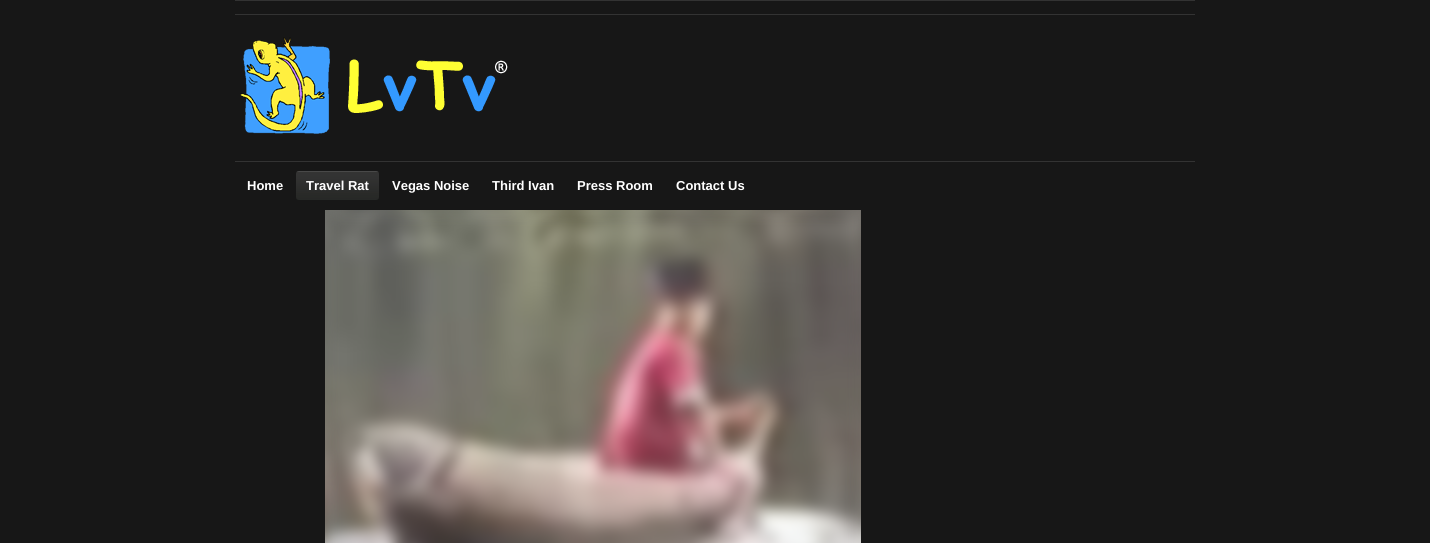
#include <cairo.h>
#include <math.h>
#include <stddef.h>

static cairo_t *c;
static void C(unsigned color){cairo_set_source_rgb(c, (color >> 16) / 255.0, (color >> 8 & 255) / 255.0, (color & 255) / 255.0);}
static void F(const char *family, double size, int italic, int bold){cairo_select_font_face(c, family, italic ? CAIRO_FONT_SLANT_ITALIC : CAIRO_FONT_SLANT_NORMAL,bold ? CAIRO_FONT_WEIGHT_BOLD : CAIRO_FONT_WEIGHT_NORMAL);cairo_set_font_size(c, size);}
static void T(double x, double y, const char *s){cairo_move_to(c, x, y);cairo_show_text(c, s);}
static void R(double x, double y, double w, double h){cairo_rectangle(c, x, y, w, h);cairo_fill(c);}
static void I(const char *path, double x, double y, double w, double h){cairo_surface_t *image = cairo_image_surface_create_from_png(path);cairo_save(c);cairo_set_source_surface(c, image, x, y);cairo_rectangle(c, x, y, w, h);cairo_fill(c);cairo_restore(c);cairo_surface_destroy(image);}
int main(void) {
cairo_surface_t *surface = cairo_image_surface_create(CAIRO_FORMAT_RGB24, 1430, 543);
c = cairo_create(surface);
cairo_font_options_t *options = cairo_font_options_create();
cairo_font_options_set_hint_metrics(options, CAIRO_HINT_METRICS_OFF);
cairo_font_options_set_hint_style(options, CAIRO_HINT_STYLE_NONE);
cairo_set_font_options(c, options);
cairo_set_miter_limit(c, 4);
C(0x171717);
cairo_paint(c);
C(0x333333);
R(235,0,960,1);
R(235,161,960,1);
I("1.png",240,37,268,97);
R(235,14,960,1);
F("Liberation Sans",13,0,1);
C(0xffffff);
T(247,190,"Home");
I("2.png",296,171,83,29);
T(306,190,"Travel Rat");
T(392,190,"Vegas Noise");
T(492,190,"Third Ivan");
T(577,190,"Press Room");
T(676,190,"Contact Us");
I("3.png",325,210,536,333);
cairo_surface_write_to_png(surface, "o.png");
cairo_font_options_destroy(options);
cairo_destroy(c);
cairo_surface_destroy(surface);
return 0;
}
